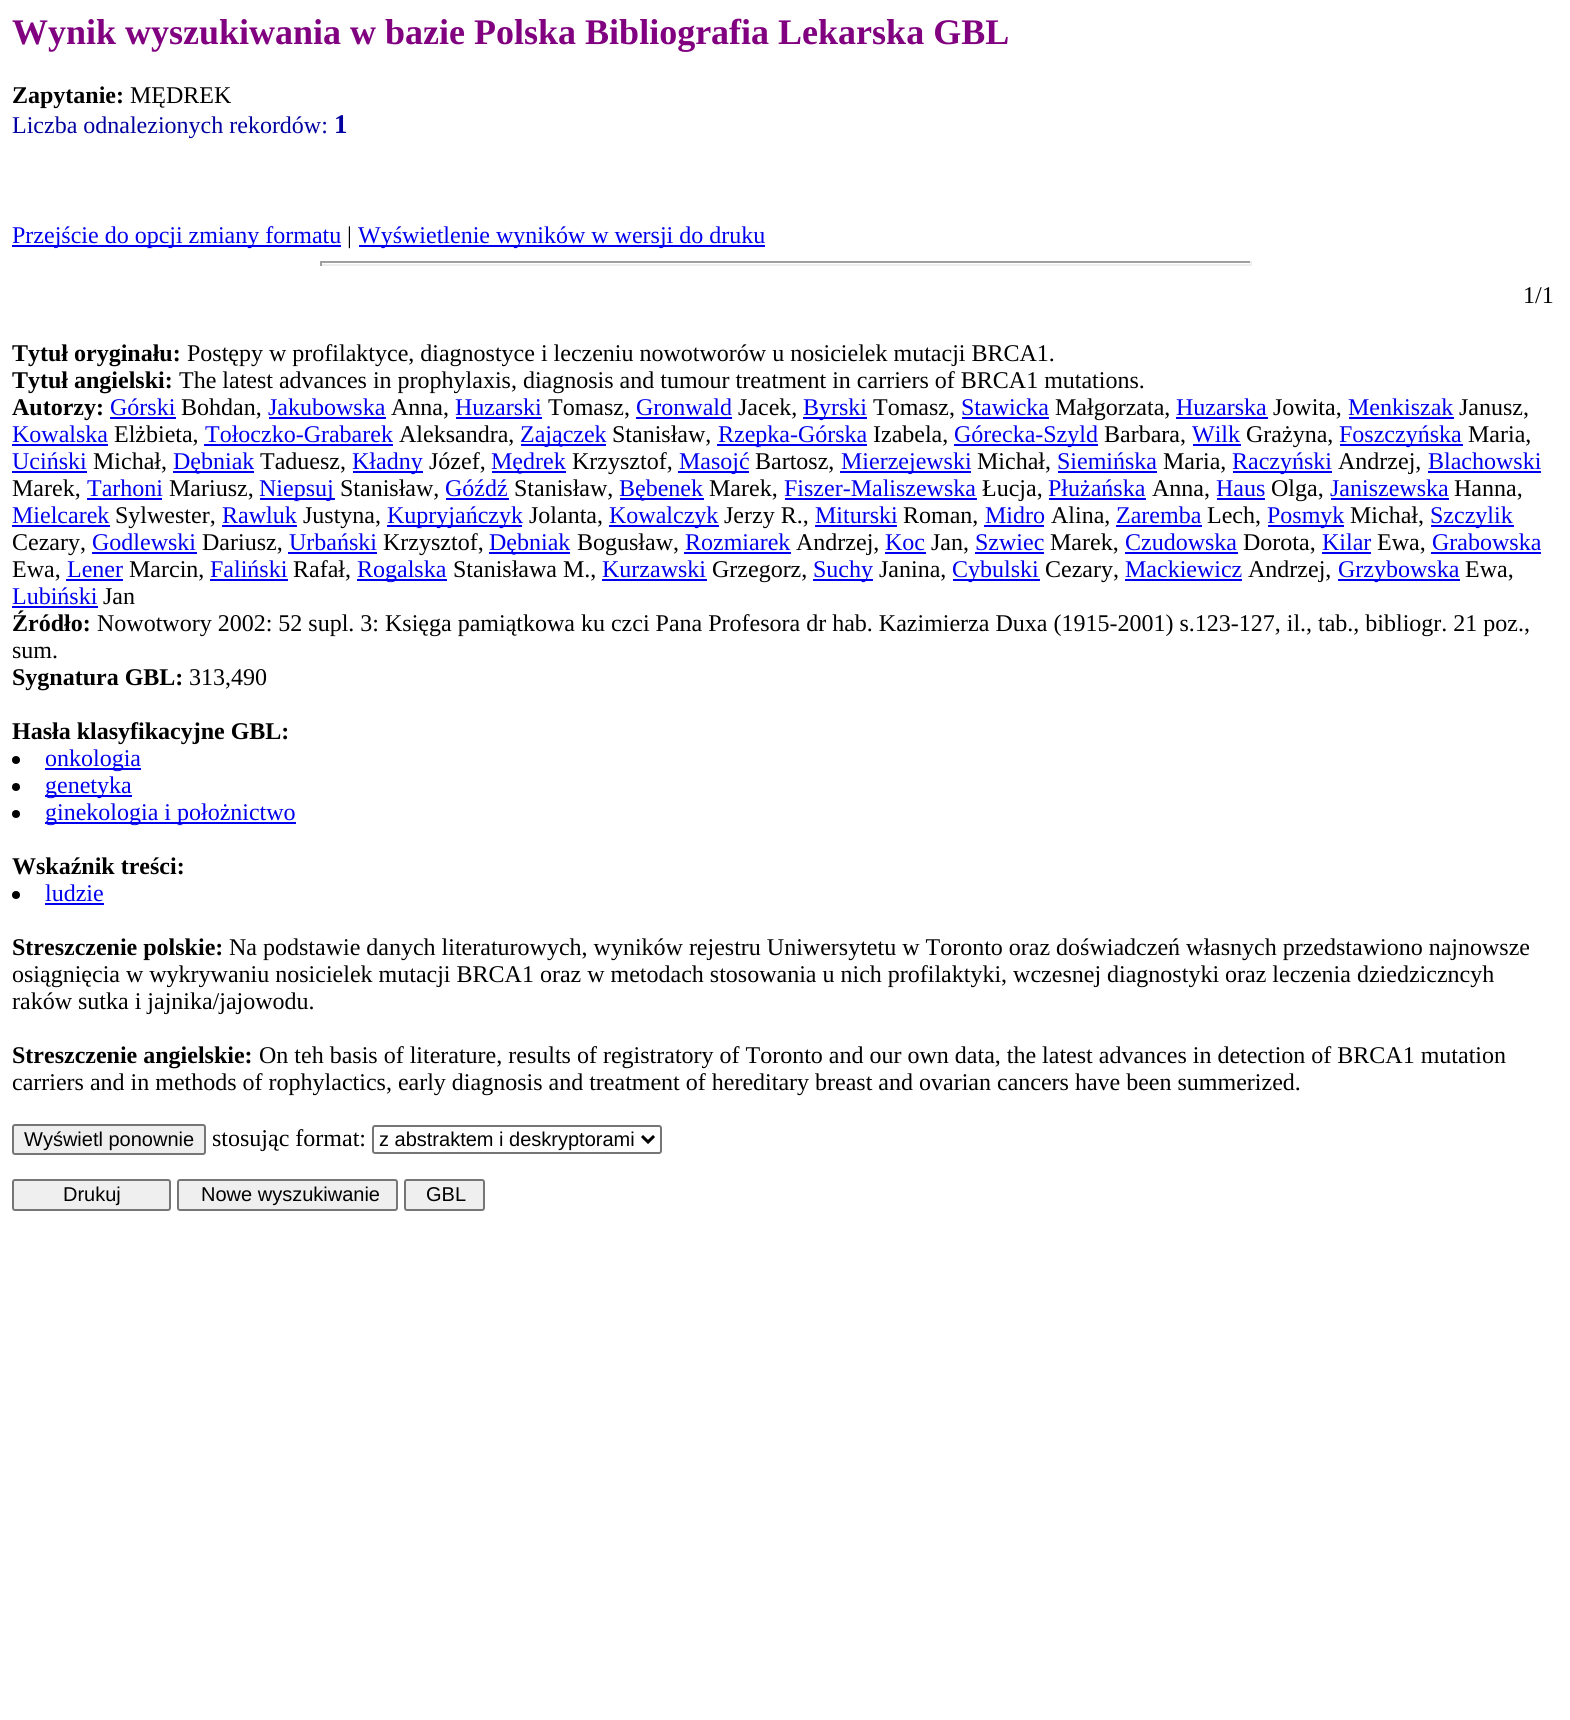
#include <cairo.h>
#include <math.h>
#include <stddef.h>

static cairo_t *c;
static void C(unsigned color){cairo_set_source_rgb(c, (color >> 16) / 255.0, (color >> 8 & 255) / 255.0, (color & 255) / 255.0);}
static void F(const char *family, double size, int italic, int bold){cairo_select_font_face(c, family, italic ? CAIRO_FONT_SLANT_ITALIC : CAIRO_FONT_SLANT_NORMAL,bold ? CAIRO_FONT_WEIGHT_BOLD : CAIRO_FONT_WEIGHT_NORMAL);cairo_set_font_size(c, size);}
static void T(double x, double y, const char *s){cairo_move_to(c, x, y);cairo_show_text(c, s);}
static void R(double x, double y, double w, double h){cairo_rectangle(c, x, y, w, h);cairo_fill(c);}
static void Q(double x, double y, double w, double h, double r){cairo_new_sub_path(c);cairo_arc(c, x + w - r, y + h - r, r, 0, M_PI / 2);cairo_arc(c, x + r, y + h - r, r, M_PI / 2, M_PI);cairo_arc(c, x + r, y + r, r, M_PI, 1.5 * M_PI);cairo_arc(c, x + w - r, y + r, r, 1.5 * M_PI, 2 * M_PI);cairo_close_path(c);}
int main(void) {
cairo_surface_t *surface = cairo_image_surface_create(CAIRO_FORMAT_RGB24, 1570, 1720);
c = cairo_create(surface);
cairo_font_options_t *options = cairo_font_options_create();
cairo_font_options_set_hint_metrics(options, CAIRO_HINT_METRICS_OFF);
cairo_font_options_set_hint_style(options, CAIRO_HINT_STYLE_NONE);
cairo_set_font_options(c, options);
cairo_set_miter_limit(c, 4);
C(0xffffff);
cairo_paint(c);
F("Liberation Serif",36,0,1);
C(0x800080);
T(12,44,"Wynik wyszukiwania w bazie Polska Bibliografia Lekarska GBL");
F("Liberation Serif",24,0,1);
C(0x000000);
T(12,103,"Zapytanie:");
F("Liberation Serif",24,0,0);
T(130,103,"MĘDREK");
C(0x0000a0);
T(12,133,"Liczba odnalezionych rekordów:");
F("Liberation Serif",27,0,1);
T(334,133,"1");
C(0x0000ee);
R(12,245,329,2);
F("Liberation Serif",24,0,0);
T(12,243,"Przejście do opcji zmiany formatu");
C(0x000000);
T(347,243,"|");
C(0x0000ee);
R(359,245,406,2);
T(358,243,"Wyświetlenie wyników w wersji do druku");
C(0x9f9f9f);
R(320,261,931,2);
C(0xeeeeee);
R(1250,261,2,5);
R(320,264,931,2);
C(0x9f9f9f);
R(320,261,2,5);
C(0x000000);
T(1523,303,"1/1");
F("Liberation Serif",24,0,1);
T(12,361,"Tytuł oryginału:");
F("Liberation Serif",24,0,0);
T(187,361,"Postępy w profilaktyce, diagnostyce i leczeniu nowotworów u nosicielek mutacji BRCA1.");
F("Liberation Serif",24,0,1);
T(12,388,"Tytuł angielski:");
F("Liberation Serif",24,0,0);
T(179,388,"The latest advances in prophylaxis, diagnosis and tumour treatment in carriers of BRCA1 mutations.");
F("Liberation Serif",24,0,1);
T(12,415,"Autorzy:");
F("Liberation Serif",24,0,0);
C(0x0000ee);
T(110,415,"Górski");
R(110,417,66,2);
C(0x000000);
T(181,415,"Bohdan,");
C(0x0000ee);
T(268,415,"Jakubowska");
R(269,417,117,2);
C(0x000000);
T(391,415,"Anna,");
C(0x0000ee);
T(455,415,"Huzarski");
R(456,417,86,2);
C(0x000000);
T(548,415,"Tomasz,");
C(0x0000ee);
T(636,415,"Gronwald");
R(636,417,96,2);
C(0x000000);
T(738,415,"Jacek,");
C(0x0000ee);
R(803,417,64,2);
T(803,415,"Byrski");
C(0x000000);
T(873,415,"Tomasz,");
C(0x0000ee);
T(961,415,"Stawicka");
R(962,417,87,2);
C(0x000000);
T(1055,415,"Małgorzata,");
C(0x0000ee);
T(1176,415,"Huzarska");
R(1176,417,92,2);
C(0x000000);
T(1273,415,"Jowita,");
C(0x0000ee);
T(1348,415,"Menkiszak");
R(1349,417,105,2);
C(0x000000);
T(1459,415,"Janusz,");
C(0x0000ee);
T(12,442,"Kowalska");
R(12,444,96,2);
C(0x000000);
T(114,442,"Elżbieta,");
C(0x0000ee);
T(205,442,"Tołoczko-Grabarek");
R(204,444,189,2);
C(0x000000);
T(399,442,"Aleksandra,");
C(0x0000ee);
R(521,444,85,2);
T(520,442,"Zajączek");
C(0x000000);
T(612,442,"Stanisław,");
C(0x0000ee);
R(717,444,150,2);
T(718,442,"Rzepka-Górska");
C(0x000000);
T(873,442,"Izabela,");
C(0x0000ee);
R(954,444,144,2);
T(954,442,"Górecka-Szyld");
C(0x000000);
T(1104,442,"Barbara,");
C(0x0000ee);
T(1192,442,"Wilk");
R(1193,444,48,2);
C(0x000000);
T(1246,442,"Grażyna,");
C(0x0000ee);
R(1340,444,123,2);
T(1339,442,"Foszczyńska");
C(0x000000);
T(1468,442,"Maria,");
C(0x0000ee);
T(12,469,"Uciński");
R(12,471,75,2);
C(0x000000);
T(93,469,"Michał,");
C(0x0000ee);
R(173,471,81,2);
T(173,469,"Dębniak");
C(0x000000);
T(260,469,"Taduesz,");
C(0x0000ee);
R(353,471,70,2);
T(352,469,"Kładny");
C(0x000000);
T(429,469,"Józef,");
C(0x0000ee);
R(492,471,74,2);
T(491,469,"Mędrek");
C(0x000000);
T(572,469,"Krzysztof,");
C(0x0000ee);
R(678,471,71,2);
T(679,469,"Masojć");
C(0x000000);
T(755,469,"Bartosz,");
C(0x0000ee);
R(840,471,131,2);
T(841,469,"Mierzejewski");
C(0x000000);
T(977,469,"Michał,");
C(0x0000ee);
T(1057,469,"Siemińska");
R(1058,471,99,2);
C(0x000000);
T(1163,469,"Maria,");
C(0x0000ee);
R(1233,471,99,2);
T(1232,469,"Raczyński");
C(0x000000);
T(1338,469,"Andrzej,");
C(0x0000ee);
T(1428,469,"Blachowski");
R(1428,471,113,2);
C(0x000000);
T(12,496,"Marek,");
C(0x0000ee);
T(87,496,"Tarhoni");
R(87,498,75,2);
C(0x000000);
T(169,496,"Mariusz,");
C(0x0000ee);
R(260,498,75,2);
T(259,496,"Niepsuj");
C(0x000000);
T(340,496,"Stanisław,");
C(0x0000ee);
T(445,496,"Góźdź");
R(446,498,63,2);
C(0x000000);
T(514,496,"Stanisław,");
C(0x0000ee);
R(620,498,84,2);
T(619,496,"Bębenek");
C(0x000000);
T(709,496,"Marek,");
C(0x0000ee);
T(784,496,"Fiszer-Maliszewska");
R(785,498,192,2);
C(0x000000);
T(982,496,"Łucja,");
C(0x0000ee);
T(1048,496,"Płużańska");
R(1049,498,97,2);
C(0x000000);
T(1152,496,"Anna,");
C(0x0000ee);
T(1216,496,"Haus");
R(1217,498,48,2);
C(0x000000);
T(1271,496,"Olga,");
C(0x0000ee);
T(1330,496,"Janiszewska");
R(1331,498,118,2);
C(0x000000);
T(1454,496,"Hanna,");
C(0x0000ee);
T(12,523,"Mielcarek");
R(12,525,98,2);
C(0x000000);
T(115,523,"Sylwester,");
C(0x0000ee);
T(222,523,"Rawluk");
R(222,525,75,2);
C(0x000000);
T(303,523,"Justyna,");
C(0x0000ee);
R(387,525,135,2);
T(387,523,"Kupryjańczyk");
C(0x000000);
T(529,523,"Jolanta,");
C(0x0000ee);
R(609,525,110,2);
T(609,523,"Kowalczyk");
C(0x000000);
T(724,523,"Jerzy R.,");
C(0x0000ee);
T(815,523,"Miturski");
R(815,525,82,2);
C(0x000000);
T(903,523,"Roman,");
C(0x0000ee);
T(985,523,"Midro");
R(984,525,60,2);
C(0x000000);
T(1051,523,"Alina,");
C(0x0000ee);
T(1116,523,"Zaremba");
R(1116,525,86,2);
C(0x000000);
T(1207,523,"Lech,");
C(0x0000ee);
R(1268,525,76,2);
T(1267,523,"Posmyk");
C(0x000000);
T(1350,523,"Michał,");
C(0x0000ee);
R(1431,525,83,2);
T(1430,523,"Szczylik");
C(0x000000);
T(12,550,"Cezary,");
C(0x0000ee);
T(92,550,"Godlewski");
R(92,552,105,2);
C(0x000000);
T(202,550,"Dariusz,");
C(0x0000ee);
T(289,550,"Urbański");
R(288,552,89,2);
C(0x000000);
T(383,550,"Krzysztof,");
C(0x0000ee);
R(489,552,81,2);
T(489,550,"Dębniak");
C(0x000000);
T(577,550,"Bogusław,");
C(0x0000ee);
T(685,550,"Rozmiarek");
R(684,552,107,2);
C(0x000000);
T(796,550,"Andrzej,");
C(0x0000ee);
T(885,550,"Koc");
R(885,552,41,2);
C(0x000000);
T(931,550,"Jan,");
C(0x0000ee);
T(975,550,"Szwiec");
R(975,552,69,2);
C(0x000000);
T(1050,550,"Marek,");
C(0x0000ee);
T(1125,550,"Czudowska");
R(1125,552,113,2);
C(0x000000);
T(1243,550,"Dorota,");
C(0x0000ee);
T(1322,550,"Kilar");
R(1322,552,49,2);
C(0x000000);
T(1377,550,"Ewa,");
C(0x0000ee);
T(1432,550,"Grabowska");
R(1431,552,110,2);
C(0x000000);
T(12,577,"Ewa,");
C(0x0000ee);
T(67,577,"Lener");
R(66,579,57,2);
C(0x000000);
T(129,577,"Marcin,");
C(0x0000ee);
T(210,577,"Faliński");
R(210,579,78,2);
C(0x000000);
T(293,577,"Rafał,");
C(0x0000ee);
R(357,579,90,2);
T(357,577,"Rogalska");
C(0x000000);
T(453,577,"Stanisława M.,");
C(0x0000ee);
T(602,577,"Kurzawski");
R(602,579,105,2);
C(0x000000);
T(712,577,"Grzegorz,");
C(0x0000ee);
R(813,579,60,2);
T(813,577,"Suchy");
C(0x000000);
T(879,577,"Janina,");
C(0x0000ee);
R(953,579,87,2);
T(952,577,"Cybulski");
C(0x000000);
T(1045,577,"Cezary,");
C(0x0000ee);
T(1125,577,"Mackiewicz");
R(1125,579,117,2);
C(0x000000);
T(1248,577,"Andrzej,");
C(0x0000ee);
R(1338,579,122,2);
T(1338,577,"Grzybowska");
C(0x000000);
T(1465,577,"Ewa,");
C(0x0000ee);
T(12,604,"Lubiński");
R(12,606,86,2);
C(0x000000);
T(103,604,"Jan");
F("Liberation Serif",24,0,1);
T(12,631,"Źródło:");
F("Liberation Serif",24,0,0);
T(97,631,"Nowotwory 2002: 52 supl. 3: Księga pamiątkowa ku czci Pana Profesora dr hab. Kazimierza Duxa (1915-2001) s.123-127, il., tab., bibliogr. 21 poz.,");
T(12,658,"sum.");
F("Liberation Serif",24,0,1);
T(12,685,"Sygnatura GBL:");
F("Liberation Serif",24,0,0);
T(189,685,"313,490");
F("Liberation Serif",24,0,1);
T(12,739,"Hasła klasyfikacyjne GBL:");
cairo_new_path(c);
cairo_arc(c,16,760,4,0,2 * M_PI);
cairo_fill(c);
C(0x0000ee);
R(45,768,96,2);
F("Liberation Serif",24,0,0);
T(45,766,"onkologia");
C(0x000000);
cairo_new_path(c);
cairo_arc(c,16,787,4,0,2 * M_PI);
cairo_fill(c);
C(0x0000ee);
R(45,795,87,2);
T(45,793,"genetyka");
C(0x000000);
cairo_new_path(c);
cairo_arc(c,16,814,4,0,2 * M_PI);
cairo_fill(c);
C(0x0000ee);
R(45,822,251,2);
T(45,820,"ginekologia i położnictwo");
F("Liberation Serif",24,0,1);
C(0x000000);
T(12,874,"Wskaźnik treści:");
cairo_new_path(c);
cairo_arc(c,16,895,4,0,2 * M_PI);
cairo_fill(c);
F("Liberation Serif",24,0,0);
C(0x0000ee);
T(45,901,"ludzie");
R(45,903,59,2);
F("Liberation Serif",24,0,1);
C(0x000000);
T(12,955,"Streszczenie polskie:");
F("Liberation Serif",24,0,0);
T(229,955,"Na podstawie danych literaturowych, wyników rejestru Uniwersytetu w Toronto oraz doświadczeń własnych przedstawiono najnowsze");
T(12,982,"osiągnięcia w wykrywaniu nosicielek mutacji BRCA1 oraz w metodach stosowania u nich profilaktyki, wczesnej diagnostyki oraz leczenia dziedziczncyh");
T(12,1009,"raków sutka i jajnika/jajowodu.");
F("Liberation Serif",24,0,1);
T(12,1063,"Streszczenie angielskie:");
F("Liberation Serif",24,0,0);
T(259,1063,"On teh basis of literature, results of registratory of Toronto and our own data, the latest advances in detection of BRCA1 mutation");
T(12,1090,"carriers and in methods of rophylactics, early diagnosis and treatment of hereditary breast and ovarian cancers have been summerized.");
C(0xefefef);
Q(13,1125,192,29,2);
cairo_fill_preserve(c);
C(0x767676);
cairo_stroke(c);
F("Liberation Sans",20,0,0);
C(0x000000);
T(24,1146,"Wyświetl ponownie");
F("Liberation Serif",24,0,0);
T(212,1146,"stosując format:");
Q(373,1126,288,27,2);
C(0x767676);
cairo_stroke(c);
cairo_new_path(c);
cairo_move_to(c,642,1136);
cairo_line_to(c,648,1142);
cairo_line_to(c,654,1136);
C(0x000000);
cairo_set_line_width(c,3);
cairo_stroke(c);
F("Liberation Sans",20,0,0);
T(379,1146,"z abstraktem i deskryptorami");
C(0xefefef);
Q(13,1180,157,30,2);
cairo_fill_preserve(c);
C(0x767676);
cairo_set_line_width(c,2);
cairo_stroke(c);
C(0x000000);
T(63,1201,"Drukuj");
C(0xefefef);
Q(178,1180,219,30,2);
cairo_fill_preserve(c);
C(0x767676);
cairo_stroke(c);
C(0x000000);
T(201,1201,"Nowe wyszukiwanie");
C(0xefefef);
Q(405,1180,79,30,2);
cairo_fill_preserve(c);
C(0x767676);
cairo_stroke(c);
C(0x000000);
T(426,1201,"GBL");
cairo_surface_write_to_png(surface, "o.png");
cairo_font_options_destroy(options);
cairo_destroy(c);
cairo_surface_destroy(surface);
return 0;
}
